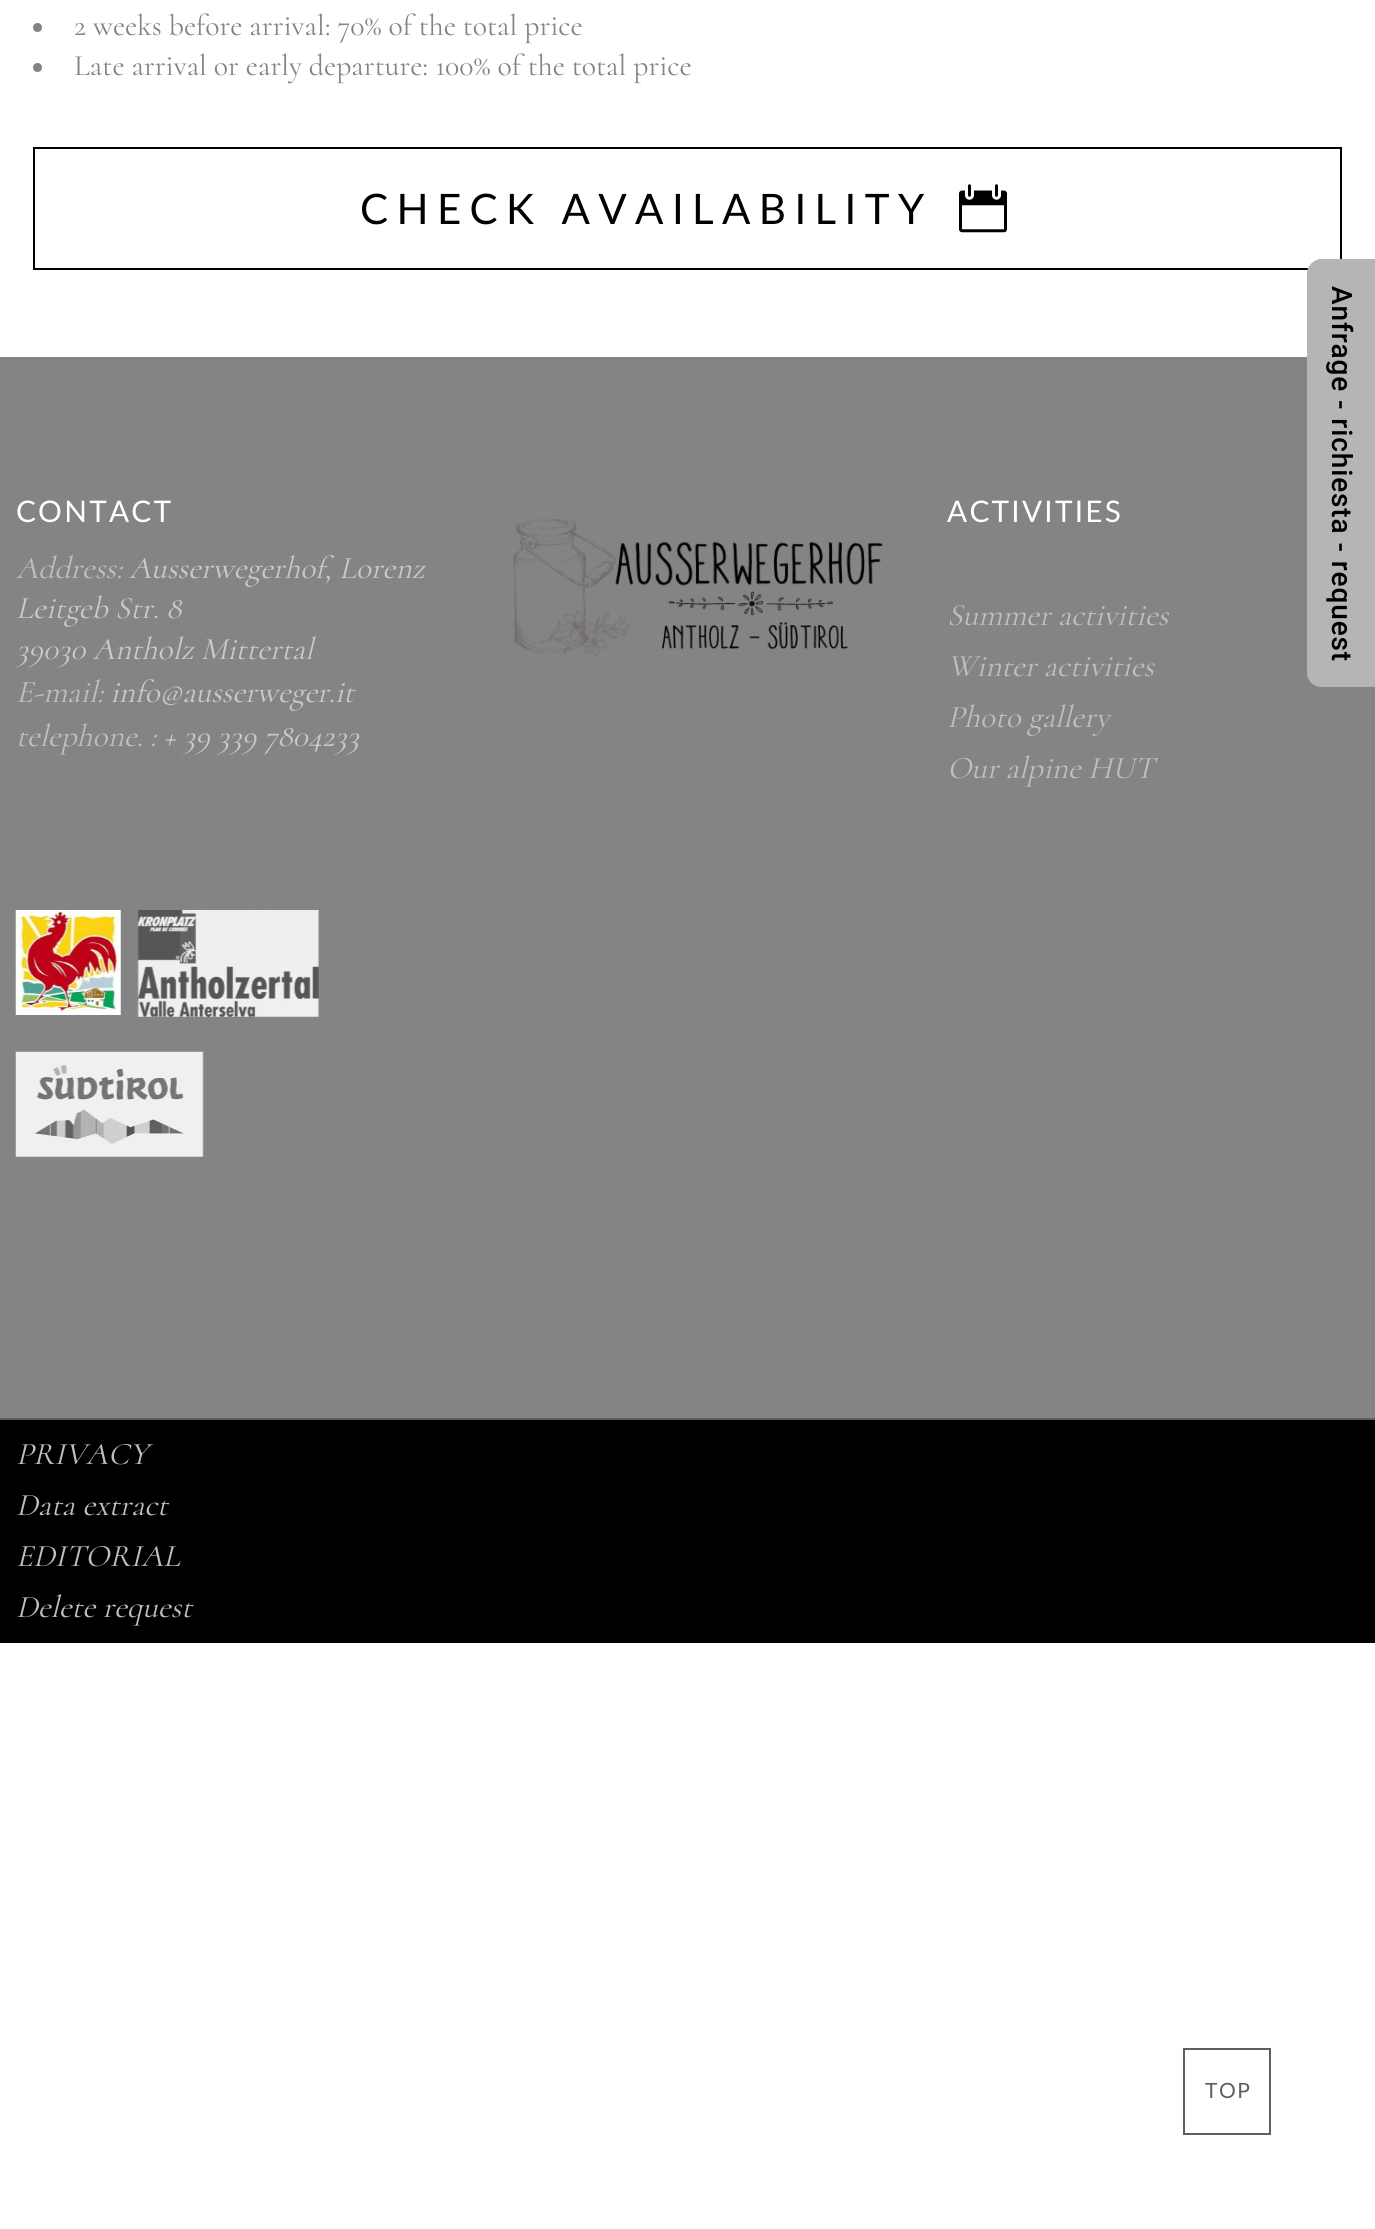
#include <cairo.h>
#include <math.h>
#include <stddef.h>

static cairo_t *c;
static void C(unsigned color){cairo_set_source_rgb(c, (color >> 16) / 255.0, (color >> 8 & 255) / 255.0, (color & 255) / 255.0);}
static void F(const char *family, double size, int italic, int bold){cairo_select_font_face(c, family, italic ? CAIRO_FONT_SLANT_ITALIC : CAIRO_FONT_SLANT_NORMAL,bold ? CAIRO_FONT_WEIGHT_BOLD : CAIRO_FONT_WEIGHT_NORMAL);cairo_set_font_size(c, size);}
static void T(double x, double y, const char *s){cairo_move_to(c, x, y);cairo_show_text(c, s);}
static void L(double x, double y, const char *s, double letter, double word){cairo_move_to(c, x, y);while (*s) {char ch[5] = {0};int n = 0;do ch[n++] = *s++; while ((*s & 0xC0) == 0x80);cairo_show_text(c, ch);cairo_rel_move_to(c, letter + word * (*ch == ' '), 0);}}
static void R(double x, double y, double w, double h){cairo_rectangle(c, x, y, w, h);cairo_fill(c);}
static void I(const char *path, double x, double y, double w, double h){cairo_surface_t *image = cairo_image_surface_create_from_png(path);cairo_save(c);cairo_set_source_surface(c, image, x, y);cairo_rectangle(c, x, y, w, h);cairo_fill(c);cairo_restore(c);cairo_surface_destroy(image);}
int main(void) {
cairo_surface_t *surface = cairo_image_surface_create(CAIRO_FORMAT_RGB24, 1375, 2229);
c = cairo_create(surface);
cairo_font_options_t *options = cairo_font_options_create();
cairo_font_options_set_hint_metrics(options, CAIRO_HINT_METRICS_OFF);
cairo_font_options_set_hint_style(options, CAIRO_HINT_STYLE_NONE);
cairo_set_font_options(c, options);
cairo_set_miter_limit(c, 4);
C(0xffffff);
cairo_paint(c);
C(0x838383);
cairo_arc(c,37.5,27.5,4.5,0,2 * M_PI);
cairo_fill(c);
F("Cormorant",29.75,0,0);
T(74,35,"2 weeks before arrival: 70% of the total price");
cairo_new_path(c);
cairo_arc(c,37.5,67.5,4.5,0,2 * M_PI);
cairo_fill(c);
T(74,75,"Late arrival or early departure: 100% of the total price");
cairo_rectangle(c,34,148,1307,121);
C(0x000000);
cairo_stroke(c);
F("Lato",42,0,0);
L(360,224,"CHECK AVAILABILITY",8.4,0);
I("1.png",959,184,48,49);
C(0x848484);
R(0,357,1375,1061);
F("Lato",29.75,0,0);
C(0xffffff);
L(16,522,"CONTACT",2.25,0);
F("Cormorant",31.5,1,0);
C(0xbfbfbf);
T(16,578,"Address:");
C(0xcacaca);
T(129,578,"Ausserwegerhof, Lorenz");
T(16,618,"Leitgeb Str. 8");
T(16,659,"39030 Antholz Mittertal");
C(0xbfbfbf);
T(16,702,"E-mail:");
C(0xcacaca);
T(110,702,"info@ausserweger.it");
C(0xbfbfbf);
T(16,746,"telephone. :");
C(0xcacaca);
T(163,746,"+ 39 339 7804233");
I("2.png",15,910,106,105);
I("3.png",137,910,182,107);
I("4.png",15,1051,189,106);
I("5.png",513,519,370,137);
F("Lato",29.75,0,0);
C(0xffffff);
L(947,522,"ACTIVITIES",2.25,0);
F("Cormorant",31.5,1,0);
C(0xbfbfbf);
T(947,625,"Summer activities");
T(947,676,"Winter activities");
T(947,727,"Photo gallery");
T(947,778,"Our alpine HUT");
C(0x000000);
R(0,1420,1375,223);
C(0x5f5f5f);
R(0,1418,1375,2);
C(0xbfbfbf);
T(16,1464,"PRIVACY");
T(16,1515,"Data extract");
T(16,1566,"EDITORIAL");
T(16,1617,"Delete request");
cairo_rectangle(c,1184,2049,86,85);
C(0x5f5f5f);
cairo_stroke(c);
F("Lato",21,0,0);
L(1205,2098,"TOP",1.5,0);
C(0xb5b5b5);
cairo_new_path(c);
cairo_move_to(c,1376,259);
cairo_line_to(c,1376,687);
cairo_line_to(c,1321,687);
cairo_curve_to(c,1314,687,1307,681,1307,673);
cairo_line_to(c,1307,273);
cairo_curve_to(c,1307,266,1314,259,1321,259);
cairo_close_path(c);
cairo_fill(c);
F("Roboto Medium",28,0,0);
C(0x000000);
cairo_save(c);
cairo_translate(c,1332,286);
cairo_rotate(c,90 * M_PI / 180);
L(0,0,"Anfrage - richiesta - request",.9,0);
cairo_restore(c);
cairo_surface_write_to_png(surface, "o.png");
cairo_font_options_destroy(options);
cairo_destroy(c);
cairo_surface_destroy(surface);
return 0;
}
